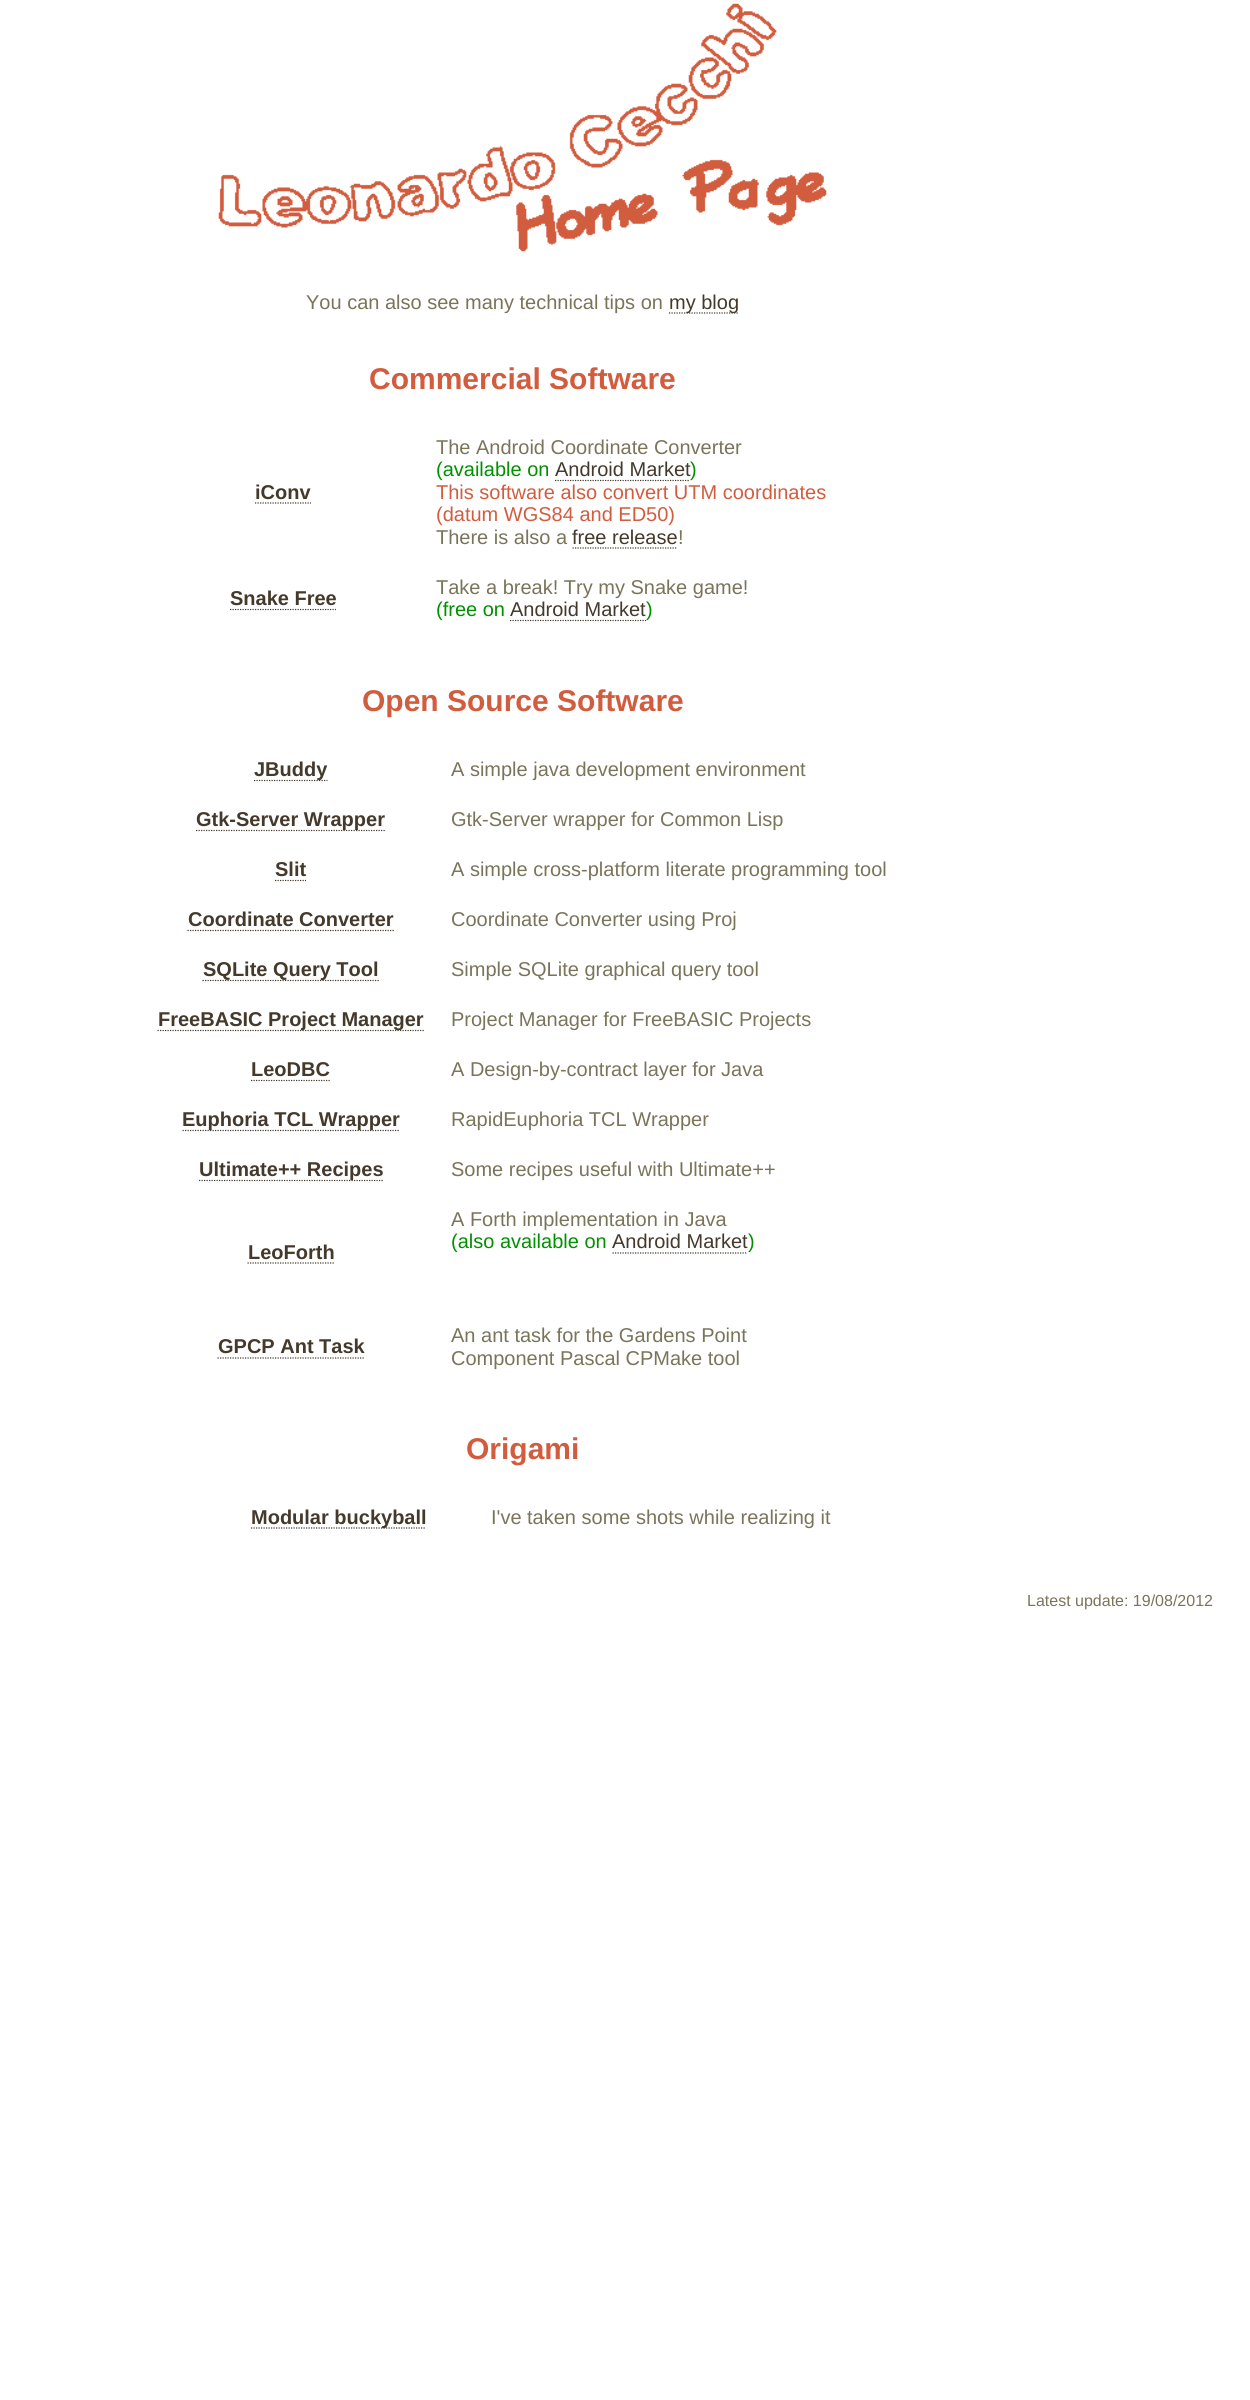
#include <cairo.h>
#include <math.h>
#include <stddef.h>

static cairo_t *c;
static void C(unsigned color){cairo_set_source_rgb(c, (color >> 16) / 255.0, (color >> 8 & 255) / 255.0, (color & 255) / 255.0);}
static void F(const char *family, double size, int italic, int bold){cairo_select_font_face(c, family, italic ? CAIRO_FONT_SLANT_ITALIC : CAIRO_FONT_SLANT_NORMAL,bold ? CAIRO_FONT_WEIGHT_BOLD : CAIRO_FONT_WEIGHT_NORMAL);cairo_set_font_size(c, size);}
static void T(double x, double y, const char *s){cairo_move_to(c, x, y);cairo_show_text(c, s);}
static void I(const char *path, double x, double y, double w, double h){cairo_surface_t *image = cairo_image_surface_create_from_png(path);cairo_save(c);cairo_set_source_surface(c, image, x, y);cairo_rectangle(c, x, y, w, h);cairo_fill(c);cairo_restore(c);cairo_surface_destroy(image);}
int main(void) {
cairo_surface_t *surface = cairo_image_surface_create(CAIRO_FORMAT_RGB24, 1250, 2400);
c = cairo_create(surface);
cairo_font_options_t *options = cairo_font_options_create();
cairo_font_options_set_hint_metrics(options, CAIRO_HINT_METRICS_OFF);
cairo_font_options_set_hint_style(options, CAIRO_HINT_STYLE_NONE);
cairo_set_font_options(c, options);
cairo_set_miter_limit(c, 4);
C(0xffffff);
cairo_paint(c);
I("1.png",218,3,609,249);
F("Liberation Sans",20,0,0);
C(0x7a745a);
T(306,309,"You can also see many technical tips on");
cairo_new_path(c);
cairo_move_to(c,669,313);
cairo_line_to(c,739,313);
C(0x44392b);
cairo_set_line_width(c,1.2);
cairo_set_dash(c,(double[]){1.25,1.25},2,0);
cairo_stroke(c);
T(669,309,"my blog");
F("Liberation Sans",30,0,1);
C(0xd25c3e);
T(369,389,"Commercial Software");
F("Liberation Sans",20,0,1);
C(0x44392b);
T(255,499,"iConv");
cairo_new_path(c);
cairo_move_to(c,255,503);
cairo_line_to(c,311,503);
cairo_stroke(c);
F("Liberation Sans",20,0,0);
C(0x7a745a);
T(436,454,"The Android Coordinate Converter");
C(0x009000);
T(436,476,"(available on");
C(0x44392b);
T(555,476,"Android Market");
C(0x009000);
T(690,476,")");
cairo_new_path(c);
cairo_move_to(c,555,480.5);
cairo_line_to(c,690,480.5);
C(0x44392b);
cairo_stroke(c);
C(0xd25c3e);
T(436,499,"This software also convert UTM coordinates");
T(436,521,"(datum WGS84 and ED50)");
C(0x7a745a);
T(436,544,"There is also a");
C(0x44392b);
T(572,544,"free release");
cairo_new_path(c);
cairo_move_to(c,572.5,548);
cairo_line_to(c,677.5,548);
cairo_stroke(c);
C(0x7a745a);
T(678,544,"!");
F("Liberation Sans",20,0,1);
C(0x44392b);
T(230,605,"Snake Free");
cairo_new_path(c);
cairo_move_to(c,230,609.5);
cairo_line_to(c,336,609.5);
cairo_stroke(c);
F("Liberation Sans",20,0,0);
C(0x7a745a);
T(436,594,"Take a break! Try my Snake game!");
C(0x009000);
T(436,616,"(free on");
C(0x44392b);
T(510,616,"Android Market");
cairo_new_path(c);
cairo_move_to(c,510,620.5);
cairo_line_to(c,646,620.5);
cairo_stroke(c);
C(0x009000);
T(646,616,")");
F("Liberation Sans",30,0,1);
C(0xd25c3e);
T(362,711,"Open Source Software");
cairo_new_path(c);
cairo_move_to(c,254,780.5);
cairo_line_to(c,327.5,780.5);
C(0x44392b);
cairo_stroke(c);
F("Liberation Sans",20,0,1);
T(254,776,"JBuddy");
F("Liberation Sans",20,0,0);
C(0x7a745a);
T(451,776,"A simple java development environment");
cairo_new_path(c);
cairo_move_to(c,196,830.5);
cairo_line_to(c,385,830.5);
C(0x44392b);
cairo_stroke(c);
F("Liberation Sans",20,0,1);
T(196,826,"Gtk-Server Wrapper");
F("Liberation Sans",20,0,0);
C(0x7a745a);
T(451,826,"Gtk-Server wrapper for Common Lisp");
F("Liberation Sans",20,0,1);
C(0x44392b);
T(275,876,"Slit");
cairo_new_path(c);
cairo_move_to(c,275,880.5);
cairo_line_to(c,306,880.5);
cairo_stroke(c);
F("Liberation Sans",20,0,0);
C(0x7a745a);
T(451,876,"A simple cross-platform literate programming tool");
F("Liberation Sans",20,0,1);
C(0x44392b);
T(188,926,"Coordinate Converter");
cairo_new_path(c);
cairo_move_to(c,187.5,930.5);
cairo_line_to(c,394,930.5);
cairo_stroke(c);
F("Liberation Sans",20,0,0);
C(0x7a745a);
T(451,926,"Coordinate Converter using Proj");
cairo_new_path(c);
cairo_move_to(c,202.5,980.5);
cairo_line_to(c,379,980.5);
C(0x44392b);
cairo_stroke(c);
F("Liberation Sans",20,0,1);
T(203,976,"SQLite Query Tool");
F("Liberation Sans",20,0,0);
C(0x7a745a);
T(451,976,"Simple SQLite graphical query tool");
cairo_new_path(c);
cairo_move_to(c,157.5,1030.5);
cairo_line_to(c,424,1030.5);
C(0x44392b);
cairo_stroke(c);
F("Liberation Sans",20,0,1);
T(158,1026,"FreeBASIC Project Manager");
F("Liberation Sans",20,0,0);
C(0x7a745a);
T(451,1026,"Project Manager for FreeBASIC Projects");
F("Liberation Sans",20,0,1);
C(0x44392b);
T(251,1076,"LeoDBC");
cairo_new_path(c);
cairo_move_to(c,251,1080.5);
cairo_line_to(c,330,1080.5);
cairo_stroke(c);
F("Liberation Sans",20,0,0);
C(0x7a745a);
T(451,1076,"A Design-by-contract layer for Java");
cairo_new_path(c);
cairo_move_to(c,182.5,1130.5);
cairo_line_to(c,400,1130.5);
C(0x44392b);
cairo_stroke(c);
F("Liberation Sans",20,0,1);
T(182,1126,"Euphoria TCL Wrapper");
F("Liberation Sans",20,0,0);
C(0x7a745a);
T(451,1126,"RapidEuphoria TCL Wrapper");
cairo_new_path(c);
cairo_move_to(c,199,1180.5);
cairo_line_to(c,384,1180.5);
C(0x44392b);
cairo_stroke(c);
F("Liberation Sans",20,0,1);
T(199,1176,"Ultimate++ Recipes");
F("Liberation Sans",20,0,0);
C(0x7a745a);
T(451,1176,"Some recipes useful with Ultimate++");
F("Liberation Sans",20,0,1);
C(0x44392b);
T(248,1259,"LeoForth");
cairo_new_path(c);
cairo_move_to(c,247.5,1263);
cairo_line_to(c,334,1263);
cairo_stroke(c);
F("Liberation Sans",20,0,0);
C(0x7a745a);
T(451,1226,"A Forth implementation in Java");
C(0x009000);
T(451,1248,"(also available on");
C(0x44392b);
T(612,1248,"Android Market");
C(0x009000);
T(748,1248,")");
cairo_new_path(c);
cairo_move_to(c,612.5,1253);
cairo_line_to(c,747.5,1253);
C(0x44392b);
cairo_stroke(c);
F("Liberation Sans",20,0,1);
T(218,1353,"GPCP Ant Task");
cairo_new_path(c);
cairo_move_to(c,217.5,1358);
cairo_line_to(c,364,1358);
cairo_stroke(c);
F("Liberation Sans",20,0,0);
C(0x7a745a);
T(451,1342,"An ant task for the Gardens Point");
T(451,1365,"Component Pascal CPMake tool");
F("Liberation Sans",30,0,1);
C(0xd25c3e);
T(466,1459,"Origami");
cairo_new_path(c);
cairo_move_to(c,251,1528);
cairo_line_to(c,426,1528);
C(0x44392b);
cairo_stroke(c);
F("Liberation Sans",20,0,1);
T(251,1524,"Modular buckyball");
F("Liberation Sans",20,0,0);
C(0x7a745a);
T(491,1524,"I've taken some shots while realizing it");
F("Liberation Sans",16,0,0);
T(1027,1606,"Latest update: 19/08/2012");
cairo_surface_write_to_png(surface, "o.png");
cairo_font_options_destroy(options);
cairo_destroy(c);
cairo_surface_destroy(surface);
return 0;
}
